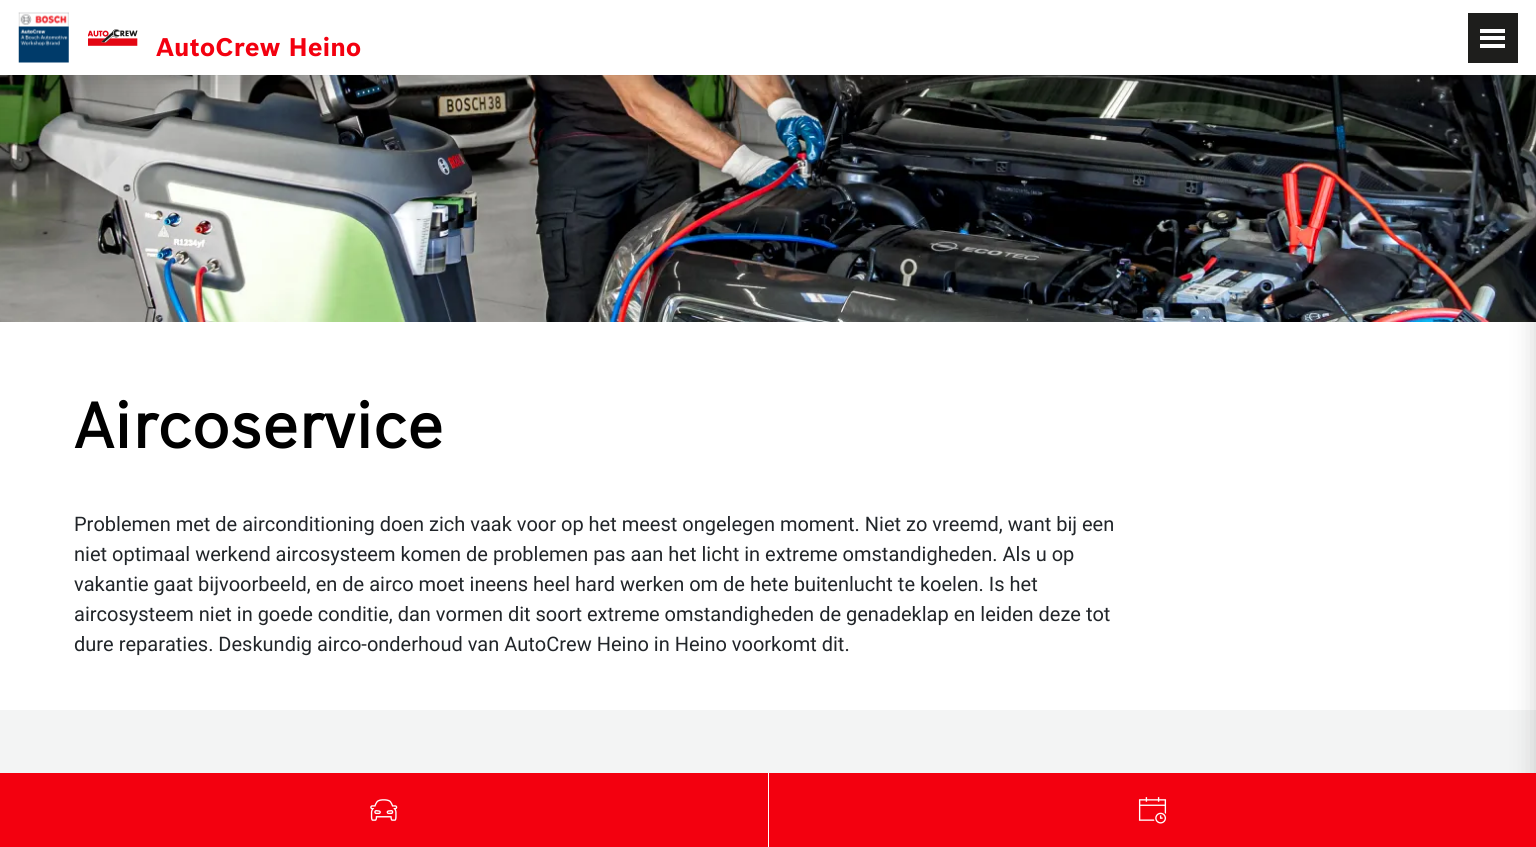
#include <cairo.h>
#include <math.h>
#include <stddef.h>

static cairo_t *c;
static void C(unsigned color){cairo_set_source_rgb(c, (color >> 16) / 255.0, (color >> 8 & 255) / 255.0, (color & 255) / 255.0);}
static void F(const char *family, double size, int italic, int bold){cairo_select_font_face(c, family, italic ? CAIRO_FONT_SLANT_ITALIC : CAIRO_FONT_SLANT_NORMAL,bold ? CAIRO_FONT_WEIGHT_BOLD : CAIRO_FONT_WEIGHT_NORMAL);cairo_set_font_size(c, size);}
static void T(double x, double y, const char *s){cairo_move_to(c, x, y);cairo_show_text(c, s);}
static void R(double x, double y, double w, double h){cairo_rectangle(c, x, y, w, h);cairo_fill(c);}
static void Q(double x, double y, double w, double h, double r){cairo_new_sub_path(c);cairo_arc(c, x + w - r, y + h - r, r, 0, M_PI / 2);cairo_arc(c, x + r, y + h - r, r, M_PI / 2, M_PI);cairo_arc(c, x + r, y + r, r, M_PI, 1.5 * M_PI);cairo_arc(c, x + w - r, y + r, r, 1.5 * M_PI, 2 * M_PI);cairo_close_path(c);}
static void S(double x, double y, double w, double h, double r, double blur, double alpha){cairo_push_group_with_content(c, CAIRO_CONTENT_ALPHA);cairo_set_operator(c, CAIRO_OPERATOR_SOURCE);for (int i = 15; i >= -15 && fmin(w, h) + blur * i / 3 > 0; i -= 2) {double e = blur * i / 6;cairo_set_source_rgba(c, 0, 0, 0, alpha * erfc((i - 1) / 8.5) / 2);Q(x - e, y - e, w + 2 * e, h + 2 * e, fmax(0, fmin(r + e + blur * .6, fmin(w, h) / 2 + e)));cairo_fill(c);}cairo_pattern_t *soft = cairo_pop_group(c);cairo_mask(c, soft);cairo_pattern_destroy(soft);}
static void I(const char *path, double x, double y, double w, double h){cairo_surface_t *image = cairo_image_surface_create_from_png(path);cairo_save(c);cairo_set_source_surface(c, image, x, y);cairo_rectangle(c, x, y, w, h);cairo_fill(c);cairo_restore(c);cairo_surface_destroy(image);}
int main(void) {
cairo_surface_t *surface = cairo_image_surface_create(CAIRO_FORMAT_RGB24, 1536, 847);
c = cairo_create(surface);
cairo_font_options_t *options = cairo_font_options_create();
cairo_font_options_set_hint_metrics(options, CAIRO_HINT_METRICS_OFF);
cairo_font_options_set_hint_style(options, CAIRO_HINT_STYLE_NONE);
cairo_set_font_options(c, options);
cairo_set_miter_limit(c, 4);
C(0xffffff);
cairo_paint(c);
I("3.png",0,75,1536,247);
C(0x000000);
S(0,3,1536,75,0,12.5,.18);
C(0xf3f4f4);
R(0,710,1536,63);
C(0x000000);
S(1536,3,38,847,0,12.5,.18);
C(0xffffff);
R(0,0,1536,75);
I("1.png",18,12,51,51);
I("2.png",88,29,50,17);
F("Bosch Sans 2",25,0,1);
C(0xf3000f);
T(156,56,"AutoCrew Heino");
C(0x1e1e1c);
R(1468,13,50,50);
C(0xffffff);
R(1480,29,25,4);
R(1480,36,25,4);
R(1480,44,25,4);
F("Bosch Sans",62.5,0,1);
C(0x000000);
T(74,448,"Aircoservice");
F("Roboto",20,0,0);
C(0x212529);
T(74,531,"Problemen met de airconditioning doen zich vaak voor op het meest ongelegen moment. Niet zo vreemd, want bij een");
T(74,561,"niet optimaal werkend aircosysteem komen de problemen pas aan het licht in extreme omstandigheden. Als u op");
T(74,591,"vakantie gaat bijvoorbeeld, en de airco moet ineens heel hard werken om de hete buitenlucht te koelen. Is het");
T(74,621,"aircosysteem niet in goede conditie, dan vormen dit soort extreme omstandigheden de genadeklap en leiden deze tot");
T(74,651,"dure reparaties. Deskundig airco-onderhoud van AutoCrew Heino in Heino voorkomt dit.");
C(0xf3000f);
R(0,773,1536,74);
C(0xffffff);
R(768,773,1,74);
I("4.png",370,799,28,22);
I("5.png",1138,797,29,27);
cairo_surface_write_to_png(surface, "o.png");
cairo_font_options_destroy(options);
cairo_destroy(c);
cairo_surface_destroy(surface);
return 0;
}
